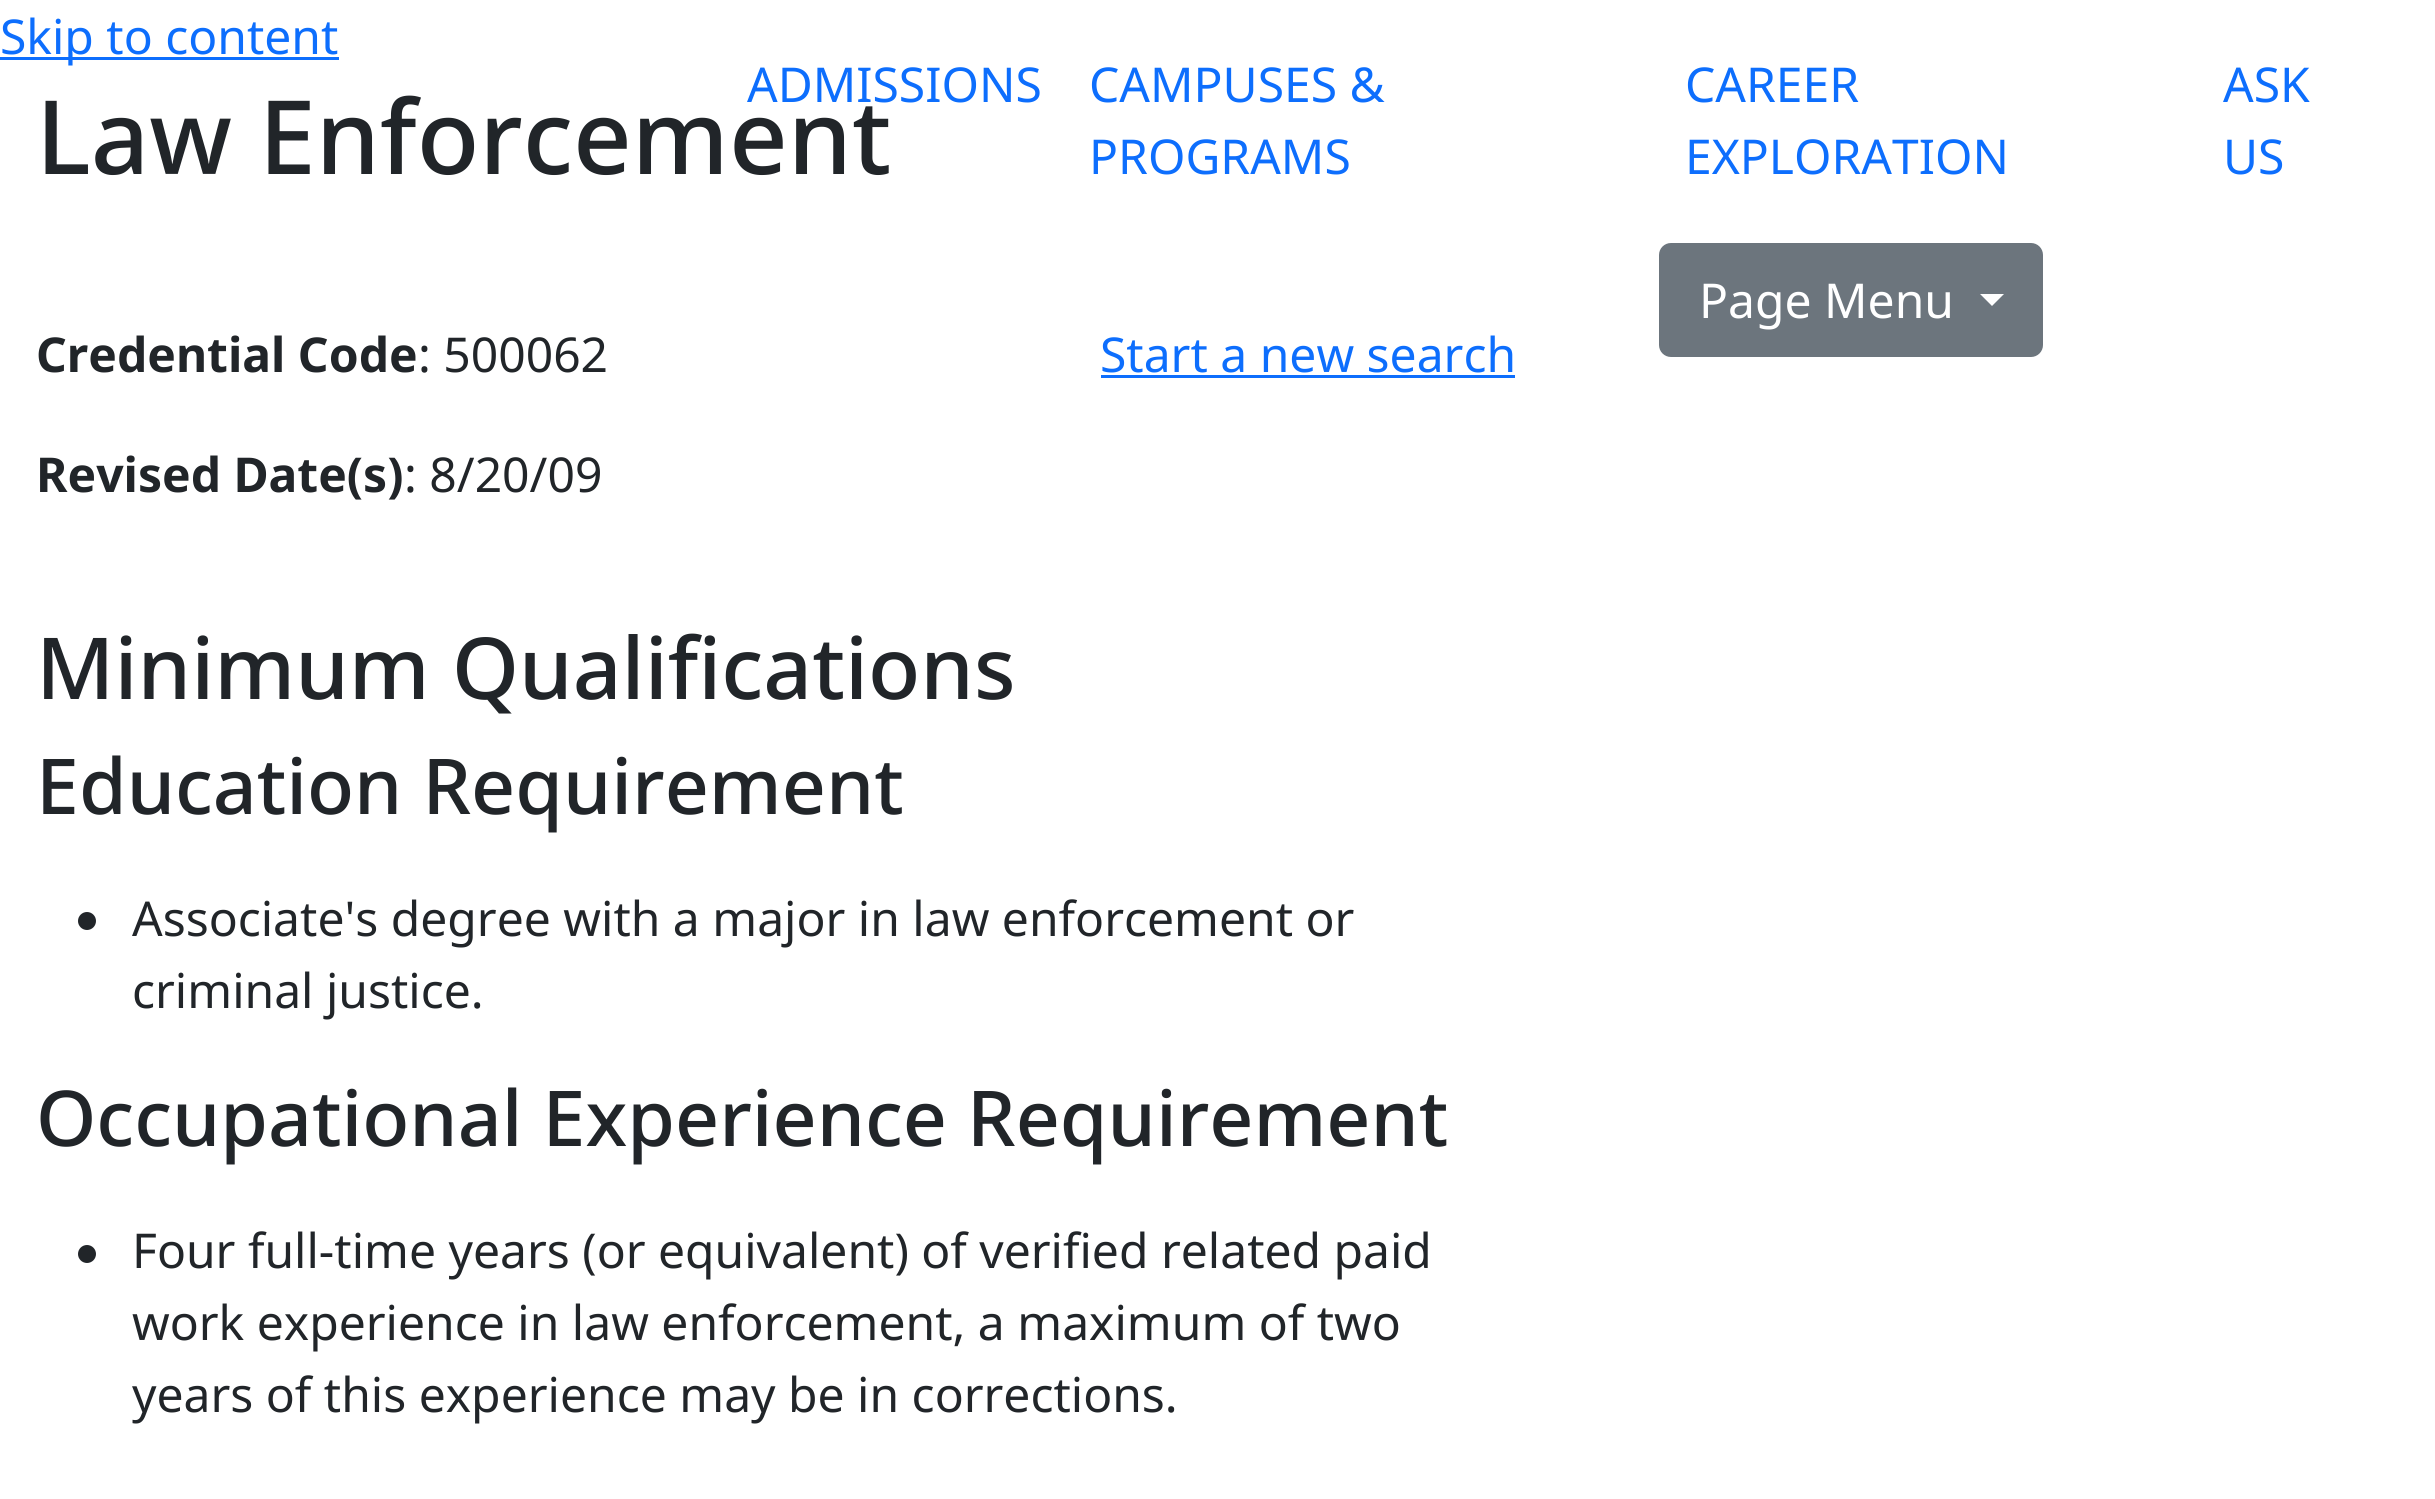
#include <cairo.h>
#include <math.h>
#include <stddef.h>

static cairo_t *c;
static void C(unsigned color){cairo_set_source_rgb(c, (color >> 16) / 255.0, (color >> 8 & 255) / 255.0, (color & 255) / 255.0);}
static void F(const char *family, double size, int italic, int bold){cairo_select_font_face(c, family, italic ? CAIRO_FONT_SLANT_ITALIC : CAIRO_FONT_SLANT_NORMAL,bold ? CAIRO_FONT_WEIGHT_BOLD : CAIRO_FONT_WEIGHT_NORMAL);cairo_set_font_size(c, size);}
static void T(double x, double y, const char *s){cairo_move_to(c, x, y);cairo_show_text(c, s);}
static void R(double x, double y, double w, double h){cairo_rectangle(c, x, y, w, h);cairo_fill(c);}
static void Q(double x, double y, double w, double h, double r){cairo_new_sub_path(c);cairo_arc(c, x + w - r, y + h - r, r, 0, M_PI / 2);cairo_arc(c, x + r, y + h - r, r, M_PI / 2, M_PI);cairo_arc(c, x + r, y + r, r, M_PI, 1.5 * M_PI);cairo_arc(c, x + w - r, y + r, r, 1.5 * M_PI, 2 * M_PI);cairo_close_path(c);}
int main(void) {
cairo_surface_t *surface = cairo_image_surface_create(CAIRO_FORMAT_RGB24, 2435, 1499);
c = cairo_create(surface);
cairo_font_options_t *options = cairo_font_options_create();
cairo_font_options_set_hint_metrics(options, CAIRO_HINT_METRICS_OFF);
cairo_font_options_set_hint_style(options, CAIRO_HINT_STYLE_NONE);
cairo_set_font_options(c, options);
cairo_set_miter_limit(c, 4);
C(0xffffff);
cairo_paint(c);
C(0x0d6efd);
R(0,57,339,3);
F("Noto Sans",48,0,0);
T(0,54,"Skip to content");
T(747,102,"ADMISSIONS");
T(1089,102,"CAMPUSES &");
T(1089,174,"PROGRAMS");
T(1685,102,"CAREER");
T(1685,174,"EXPLORATION");
T(2223,102,"ASK");
T(2223,174,"US");
F("Noto Sans Medium",102.5,0,0);
C(0x212529);
T(36,174,"Law Enforcement");
C(0x6c757d);
Q(1660.5,244.5,381,111,10.5);
cairo_fill_preserve(c);
cairo_set_line_width(c,3);
cairo_stroke(c);
F("Noto Sans",48,0,0);
C(0xffffff);
T(1699,318,"Page Menu");
cairo_new_path(c);
cairo_move_to(c,1980,294);
cairo_line_to(c,2004,294);
cairo_line_to(c,1992,306);
cairo_close_path(c);
cairo_fill(c);
F("Noto Sans",48,0,1);
C(0x212529);
T(36,372,"Credential Code");
F("Noto Sans",48,0,0);
T(418,372,": 500062");
C(0x0d6efd);
T(1100,372,"Start a new search");
R(1101,375,414,3);
F("Noto Sans",48,0,1);
C(0x212529);
T(36,492,"Revised Date(s)");
F("Noto Sans",48,0,0);
T(404,492,": 8/20/09");
F("Noto Sans Medium",85.5,0,0);
T(36,699,"Minimum Qualifications");
F("Noto Sans Medium",77,0,0);
T(36,814,"Education Requirement");
cairo_new_path(c);
cairo_arc(c,87,921,9,0,2 * M_PI);
cairo_fill(c);
F("Noto Sans",48,0,0);
T(132,936,"Associate's degree with a major in law enforcement or");
T(132,1008,"criminal justice.");
F("Noto Sans Medium",77,0,0);
T(36,1146,"Occupational Experience Requirement");
cairo_new_path(c);
cairo_arc(c,87,1254,9,0,2 * M_PI);
cairo_fill(c);
F("Noto Sans",48,0,0);
T(132,1268,"Four full-time years (or equivalent) of verified related paid");
T(132,1340,"work experience in law enforcement, a maximum of two");
T(132,1412,"years of this experience may be in corrections.");
cairo_surface_write_to_png(surface, "o.png");
cairo_font_options_destroy(options);
cairo_destroy(c);
cairo_surface_destroy(surface);
return 0;
}
